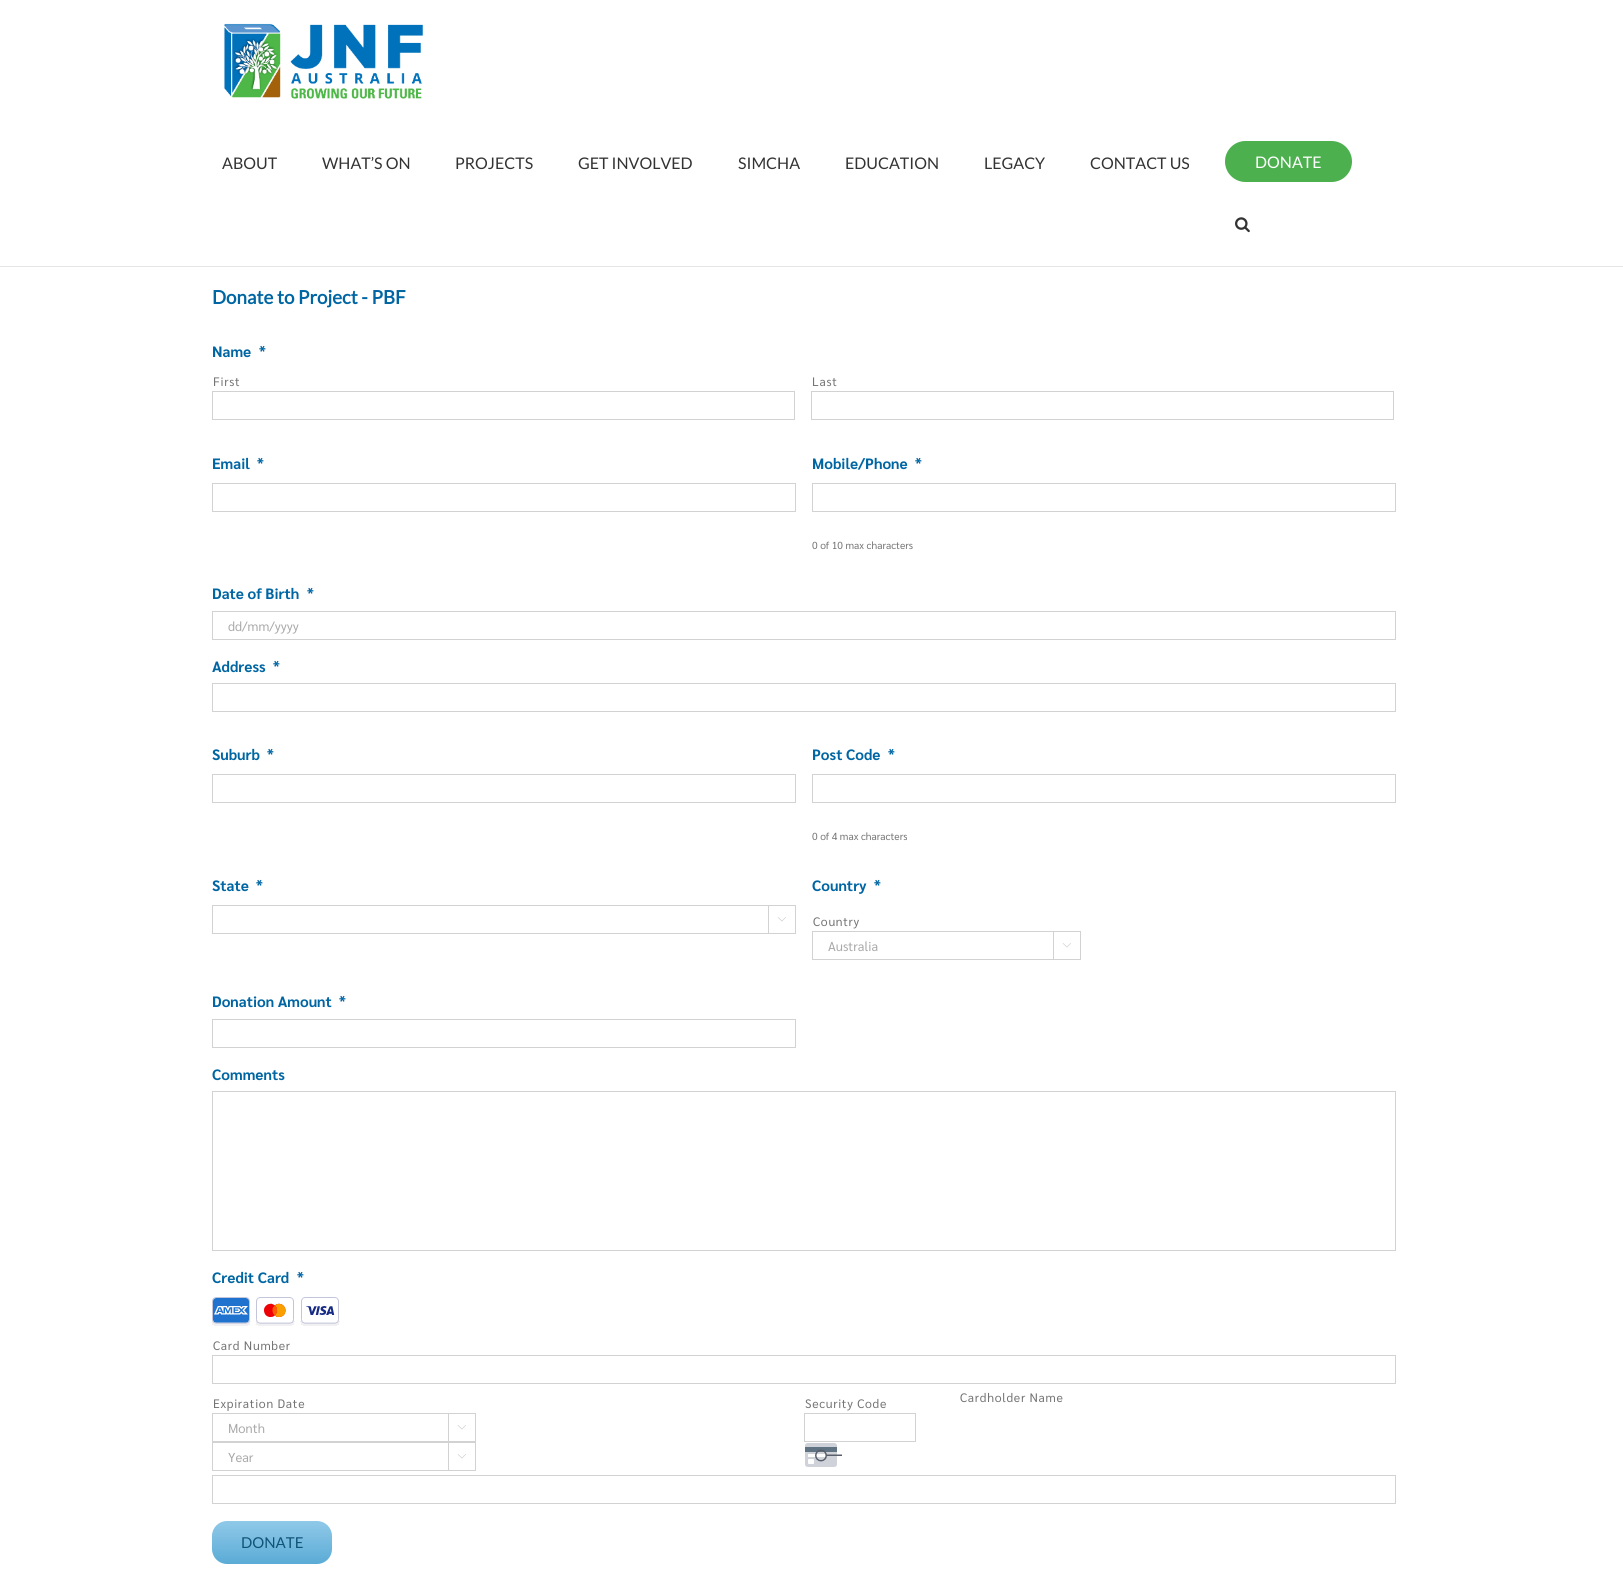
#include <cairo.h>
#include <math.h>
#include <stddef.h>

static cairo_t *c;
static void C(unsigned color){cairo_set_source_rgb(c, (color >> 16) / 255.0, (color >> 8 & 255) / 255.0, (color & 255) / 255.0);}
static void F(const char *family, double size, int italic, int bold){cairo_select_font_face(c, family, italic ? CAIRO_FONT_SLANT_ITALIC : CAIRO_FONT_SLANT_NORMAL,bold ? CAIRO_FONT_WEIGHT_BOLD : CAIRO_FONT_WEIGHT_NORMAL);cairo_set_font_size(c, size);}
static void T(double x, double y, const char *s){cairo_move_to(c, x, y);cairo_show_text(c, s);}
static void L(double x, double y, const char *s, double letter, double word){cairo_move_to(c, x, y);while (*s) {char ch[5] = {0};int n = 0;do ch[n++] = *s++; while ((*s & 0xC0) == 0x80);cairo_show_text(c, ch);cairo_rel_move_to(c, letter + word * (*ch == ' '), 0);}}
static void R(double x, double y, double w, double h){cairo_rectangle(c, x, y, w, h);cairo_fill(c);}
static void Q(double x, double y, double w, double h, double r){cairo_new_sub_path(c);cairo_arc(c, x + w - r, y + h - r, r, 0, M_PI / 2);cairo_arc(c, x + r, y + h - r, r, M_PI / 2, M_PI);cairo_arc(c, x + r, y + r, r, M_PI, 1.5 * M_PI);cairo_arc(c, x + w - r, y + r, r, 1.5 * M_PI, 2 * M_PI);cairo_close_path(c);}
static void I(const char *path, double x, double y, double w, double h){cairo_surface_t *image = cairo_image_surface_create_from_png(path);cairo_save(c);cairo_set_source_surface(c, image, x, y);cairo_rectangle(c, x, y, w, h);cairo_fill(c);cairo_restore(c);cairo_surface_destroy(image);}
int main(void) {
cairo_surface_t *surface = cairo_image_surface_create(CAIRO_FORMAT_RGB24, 1623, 1579);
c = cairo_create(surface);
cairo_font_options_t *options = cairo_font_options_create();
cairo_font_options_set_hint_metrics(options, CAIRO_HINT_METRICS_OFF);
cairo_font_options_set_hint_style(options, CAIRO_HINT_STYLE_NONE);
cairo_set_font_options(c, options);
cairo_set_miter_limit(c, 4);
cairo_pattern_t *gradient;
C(0xffffff);
cairo_paint(c);
C(0xe5e5e5);
R(0,266,1623,1);
I("1.png",224,23,200,76);
F("Lato",16,0,0);
C(0x333333);
T(222,169,"ABOUT");
T(322,169,"WHAT’S ON");
T(455,169,"PROJECTS");
T(578,169,"GET INVOLVED");
T(738,169,"SIMCHA");
T(845,169,"EDUCATION");
T(984,169,"LEGACY");
T(1090,169,"CONTACT US");
C(0x4cb04e);
Q(1225,141,127,41,20.5);
cairo_fill(c);
C(0xffffff);
T(1255,168,"DONATE");
I("2.png",1235,217,15,16);
F("Lato",18.75,0,1);
C(0x0066a3);
T(212,304,"Donate to Project - PBF");
F("Sarabun",15,0,1);
T(212,357,"Name");
T(259,357,"*");
F("Sarabun",12.25,0,0);
C(0x747474);
L(213,386,"First",.7,0);
cairo_rectangle(c,212.5,391.5,582,28);
C(0xd2d2d2);
cairo_set_line_width(c,1);
cairo_stroke(c);
C(0x747474);
L(812,386,"Last",.7,0);
cairo_rectangle(c,811.5,391.5,582,28);
C(0xd2d2d2);
cairo_stroke(c);
F("Sarabun",15,0,1);
C(0x0066a3);
T(212,469,"Email");
T(257,469,"*");
cairo_rectangle(c,212.5,483.5,583,28);
C(0xd2d2d2);
cairo_stroke(c);
C(0x0066a3);
T(812,469,"Mobile/Phone");
T(915,469,"*");
cairo_rectangle(c,812.5,483.5,583,28);
C(0xd2d2d2);
cairo_stroke(c);
F("Sarabun",10.25,0,0);
C(0x747474);
T(812,549,"0 of 10 max characters");
F("Sarabun",15,0,1);
C(0x0066a3);
T(212,599,"Date of Birth");
T(307,599,"*");
cairo_rectangle(c,212.5,611.5,1183,28);
C(0xd2d2d2);
cairo_stroke(c);
F("Sarabun",13,0,0);
C(0xaaa9a9);
T(228,631,"dd/mm/yyyy");
F("Sarabun",15,0,1);
C(0x0066a3);
T(212,672,"Address");
T(273,672,"*");
cairo_rectangle(c,212.5,683.5,1183,28);
C(0xd2d2d2);
cairo_stroke(c);
C(0x0066a3);
T(212,760,"Suburb");
T(267,760,"*");
cairo_rectangle(c,212.5,774.5,583,28);
C(0xd2d2d2);
cairo_stroke(c);
C(0x0066a3);
T(812,760,"Post Code");
T(888,760,"*");
cairo_rectangle(c,812.5,774.5,583,28);
C(0xd2d2d2);
cairo_stroke(c);
F("Sarabun",10.25,0,0);
C(0x747474);
T(812,840,"0 of 4 max characters");
F("Sarabun",15,0,1);
C(0x0066a3);
T(212,891,"State");
T(256,891,"*");
cairo_rectangle(c,212.5,905.5,583,28);
C(0xd2d2d2);
cairo_stroke(c);
R(768,906,1,27);
I("3.png",777,917,9,5);
C(0x0066a3);
T(812,891,"Country");
T(874,891,"*");
F("Sarabun",12.25,0,0);
C(0x747474);
L(813,926,"Country",.7,0);
cairo_rectangle(c,812.5,931.5,268,28);
C(0xd2d2d2);
cairo_stroke(c);
F("Sarabun",13,0,0);
C(0xaaa9a9);
T(828,951,"Australia");
C(0xd2d2d2);
R(1053,932,1,27);
I("3.png",1062,943,9,5);
F("Sarabun",15,0,1);
C(0x0066a3);
T(212,1007,"Donation Amount");
T(339,1007,"*");
cairo_rectangle(c,212.5,1019.5,583,28);
C(0xd2d2d2);
cairo_stroke(c);
C(0x0066a3);
T(212,1080,"Comments");
cairo_rectangle(c,212.5,1091.5,1183,159);
C(0xd2d2d2);
cairo_stroke(c);
C(0x0066a3);
T(212,1283,"Credit Card");
T(297,1283,"*");
I("4.png",212,1297,39,29);
I("5.png",256,1297,39,29);
I("6.png",300,1297,40,29);
F("Sarabun",12.25,0,0);
C(0x747474);
L(213,1350,"Card Number",.7,0);
cairo_rectangle(c,212.5,1355.5,1183,28);
C(0xd2d2d2);
cairo_stroke(c);
C(0x747474);
L(213,1408,"Expiration Date",.7,0);
cairo_rectangle(c,212.5,1413.5,263,28);
C(0xd2d2d2);
cairo_stroke(c);
F("Sarabun",13,0,0);
C(0xaaa9a9);
T(228,1433,"Month");
C(0xd2d2d2);
R(448,1414,1,27);
I("3.png",457,1425,9,5);
cairo_rectangle(c,212.5,1442.5,263,28);
cairo_stroke(c);
C(0xaaa9a9);
T(228,1462,"Year");
C(0xd2d2d2);
R(448,1443,1,27);
I("3.png",457,1454,9,5);
F("Sarabun",12.25,0,0);
C(0x747474);
L(805,1408,"Security Code",.7,0);
cairo_rectangle(c,804.5,1413.5,111,28);
C(0xd2d2d2);
cairo_stroke(c);
I("7.png",805,1443,37,24);
C(0x747474);
L(960,1402,"Cardholder Name",.7,0);
cairo_rectangle(c,212.5,1475.5,1183,28);
C(0xd2d2d2);
cairo_stroke(c);
gradient = cairo_pattern_create_linear(272,1564,272,1521);
cairo_pattern_add_color_stop_rgba(gradient,0,0.353,0.671,0.839,1);
cairo_pattern_add_color_stop_rgba(gradient,1,0.565,0.788,0.91,1);
cairo_set_source(c,gradient);
cairo_pattern_destroy(gradient);
Q(212,1521,120,43,15);
cairo_fill(c);
F("Lato",15,0,0);
C(0x105378);
T(241,1548,"DONATE");
cairo_surface_write_to_png(surface, "o.png");
cairo_font_options_destroy(options);
cairo_destroy(c);
cairo_surface_destroy(surface);
return 0;
}
